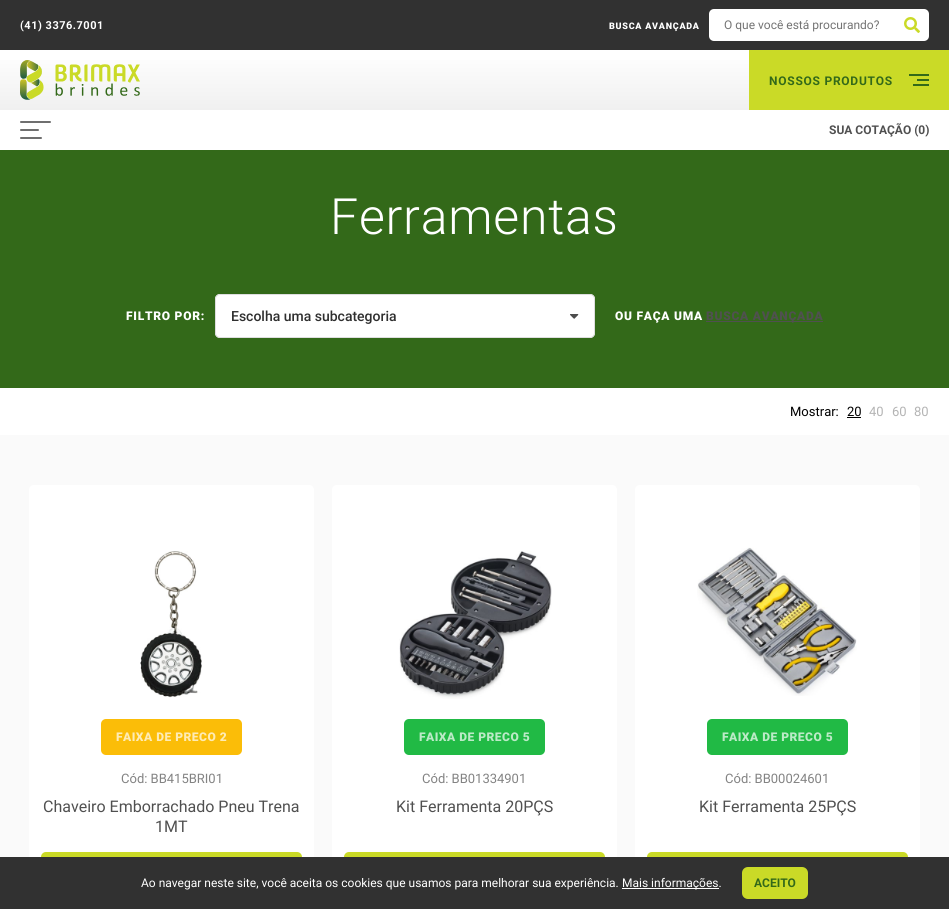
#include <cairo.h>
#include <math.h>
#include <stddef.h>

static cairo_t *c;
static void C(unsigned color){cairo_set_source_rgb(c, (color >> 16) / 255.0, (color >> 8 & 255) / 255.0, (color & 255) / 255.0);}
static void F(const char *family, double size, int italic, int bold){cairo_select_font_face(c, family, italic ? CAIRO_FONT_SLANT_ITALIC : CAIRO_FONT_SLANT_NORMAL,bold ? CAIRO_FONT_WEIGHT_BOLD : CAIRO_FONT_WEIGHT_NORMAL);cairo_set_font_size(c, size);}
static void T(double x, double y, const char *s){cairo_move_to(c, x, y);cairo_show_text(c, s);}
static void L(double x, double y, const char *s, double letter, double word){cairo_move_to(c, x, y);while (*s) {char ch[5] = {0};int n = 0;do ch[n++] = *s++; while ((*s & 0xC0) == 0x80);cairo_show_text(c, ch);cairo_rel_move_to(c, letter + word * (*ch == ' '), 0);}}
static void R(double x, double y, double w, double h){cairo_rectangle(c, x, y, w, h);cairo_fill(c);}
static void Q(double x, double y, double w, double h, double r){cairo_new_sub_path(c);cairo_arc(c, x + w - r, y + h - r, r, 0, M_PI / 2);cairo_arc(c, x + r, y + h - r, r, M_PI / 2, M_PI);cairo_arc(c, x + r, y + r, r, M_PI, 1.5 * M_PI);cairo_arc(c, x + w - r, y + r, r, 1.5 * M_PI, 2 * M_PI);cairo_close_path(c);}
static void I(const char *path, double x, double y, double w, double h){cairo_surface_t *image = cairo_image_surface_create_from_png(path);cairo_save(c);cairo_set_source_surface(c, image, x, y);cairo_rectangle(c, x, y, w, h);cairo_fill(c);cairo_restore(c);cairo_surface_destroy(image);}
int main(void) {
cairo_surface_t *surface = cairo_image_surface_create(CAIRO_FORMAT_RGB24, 949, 909);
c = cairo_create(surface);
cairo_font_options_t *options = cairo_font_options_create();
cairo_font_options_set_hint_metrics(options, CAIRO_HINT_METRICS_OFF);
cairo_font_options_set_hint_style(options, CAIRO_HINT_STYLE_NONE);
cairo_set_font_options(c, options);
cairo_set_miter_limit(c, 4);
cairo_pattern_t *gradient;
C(0xffffff);
cairo_paint(c);
C(0x313131);
R(0,0,949,50);
F("Roboto",11,0,1);
C(0xffffff);
L(20,29,"(41) 3376.7001",.5,0);
F("Roboto Black",9,0,0);
L(609,29,"BUSCA AVANÇADA",.75,0);
Q(709,9,220,32,5);
cairo_fill(c);
F("Roboto",12,0,0);
C(0x737373);
T(724,29,"O que você está procurando?");
I("1.png",904,17,16,16);
gradient = cairo_pattern_create_linear(475,50,475,110);
cairo_pattern_add_color_stop_rgba(gradient,0,1,1,1,1);
cairo_pattern_add_color_stop_rgba(gradient,1,0.941,0.941,0.941,1);
cairo_set_source(c,gradient);
cairo_pattern_destroy(gradient);
R(0,60,749,50);
C(0xcada27);
R(749,50,200,60);
I("2.png",20,60,120,40);
F("Roboto",12,0,1);
C(0x336919);
L(769,85,"NOSSOS PRODUTOS",.75,0);
R(909,74,20,2);
R(917,79,12,2);
R(913,84,16,2);
C(0x6f6f6f);
Q(20,121,31,2,1);
cairo_fill(c);
Q(20,129,19,2,1);
cairo_fill(c);
Q(20,137,22,2,1);
cairo_fill(c);
C(0x505050);
T(829,134,"SUA COTAÇÃO (0)");
C(0x336919);
R(0,150,949,238);
F("Roboto Light",50,0,0);
C(0xffffff);
L(330,234,"Ferramentas",.75,0);
F("Roboto Black",12,0,0);
L(126,320,"FILTRO POR:",.75,0);
Q(215,294,380,44,5);
cairo_fill(c);
I("3.png",570,314,9,5);
Q(215.5,294.5,379,43,4.5);
C(0xdededf);
cairo_set_line_width(c,1);
cairo_stroke(c);
F("Roboto Medium",14,0,0);
C(0x2f2f2f);
T(231,321,"Escolha uma subcategoria");
F("Roboto Black",12,0,0);
C(0xffffff);
L(615,320,"OU FAÇA UMA",.75,0);
C(0x505050);
R(706,321,117,1);
L(706,320,"BUSCA AVANÇADA",.75,0);
F("Roboto",13,0,0);
C(0x000000);
T(790,416,"Mostrar:");
T(847,416,"20");
R(847,417,14,1);
C(0xb4b4b4);
T(869,416,"40");
T(892,416,"60");
T(914,416,"80");
C(0xfafafa);
R(0,435,949,422);
C(0xffffff);
Q(29,485,285,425,5);
cairo_fill(c);
I("4.png",140,551,62,147);
C(0xfbbd08);
Q(101,719,141,36,5);
cairo_fill(c);
F("Roboto Black",12,0,0);
C(0xfeebb5);
L(116,741,"FAIXA DE PRECO 2",.5,0);
F("Roboto",13,0,0);
C(0x838383);
T(121,783,"Cód: BB415BRI01");
F("Roboto",16,0,0);
C(0x505050);
T(43,812,"Chaveiro Emborrachado Pneu Trena");
T(155,832,"1MT");
C(0xcada27);
Q(41,852,261,46,5);
cairo_fill(c);
C(0xffffff);
Q(332,485,285,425,5);
cairo_fill(c);
I("5.png",399,551,153,148);
C(0x21ba45);
Q(404,719,141,36,5);
cairo_fill(c);
F("Roboto Black",12,0,0);
C(0xbceac7);
L(419,741,"FAIXA DE PRECO 5",.5,0);
F("Roboto",13,0,0);
C(0x838383);
T(422,783,"Cód: BB01334901");
F("Roboto",16,0,0);
C(0x505050);
T(396,812,"Kit Ferramenta 20PÇS");
C(0xcada27);
Q(344,852,261,46,5);
cairo_fill(c);
C(0xffffff);
Q(635,485,285,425,5);
cairo_fill(c);
I("6.png",697,547,160,149);
C(0x21ba45);
Q(707,719,141,36,5);
cairo_fill(c);
F("Roboto Black",12,0,0);
C(0xbceac7);
L(722,741,"FAIXA DE PRECO 5",.5,0);
F("Roboto",13,0,0);
C(0x838383);
T(725,783,"Cód: BB00024601");
F("Roboto",16,0,0);
C(0x505050);
T(699,812,"Kit Ferramenta 25PÇS");
C(0xcada27);
Q(647,852,261,46,5);
cairo_fill(c);
C(0x313131);
R(0,857,949,52);
F("Roboto",12,0,0);
C(0xffffff);
T(141,887,"Ao navegar neste site, você aceita os cookies que usamos para melhorar sua experiência.");
R(622,888,97,1);
T(622,887,"Mais informações.");
C(0xcada27);
Q(742,867,66,32,6);
cairo_fill(c);
F("Roboto",12,0,1);
C(0x336919);
T(754,887,"ACEITO");
cairo_surface_write_to_png(surface, "o.png");
cairo_font_options_destroy(options);
cairo_destroy(c);
cairo_surface_destroy(surface);
return 0;
}
